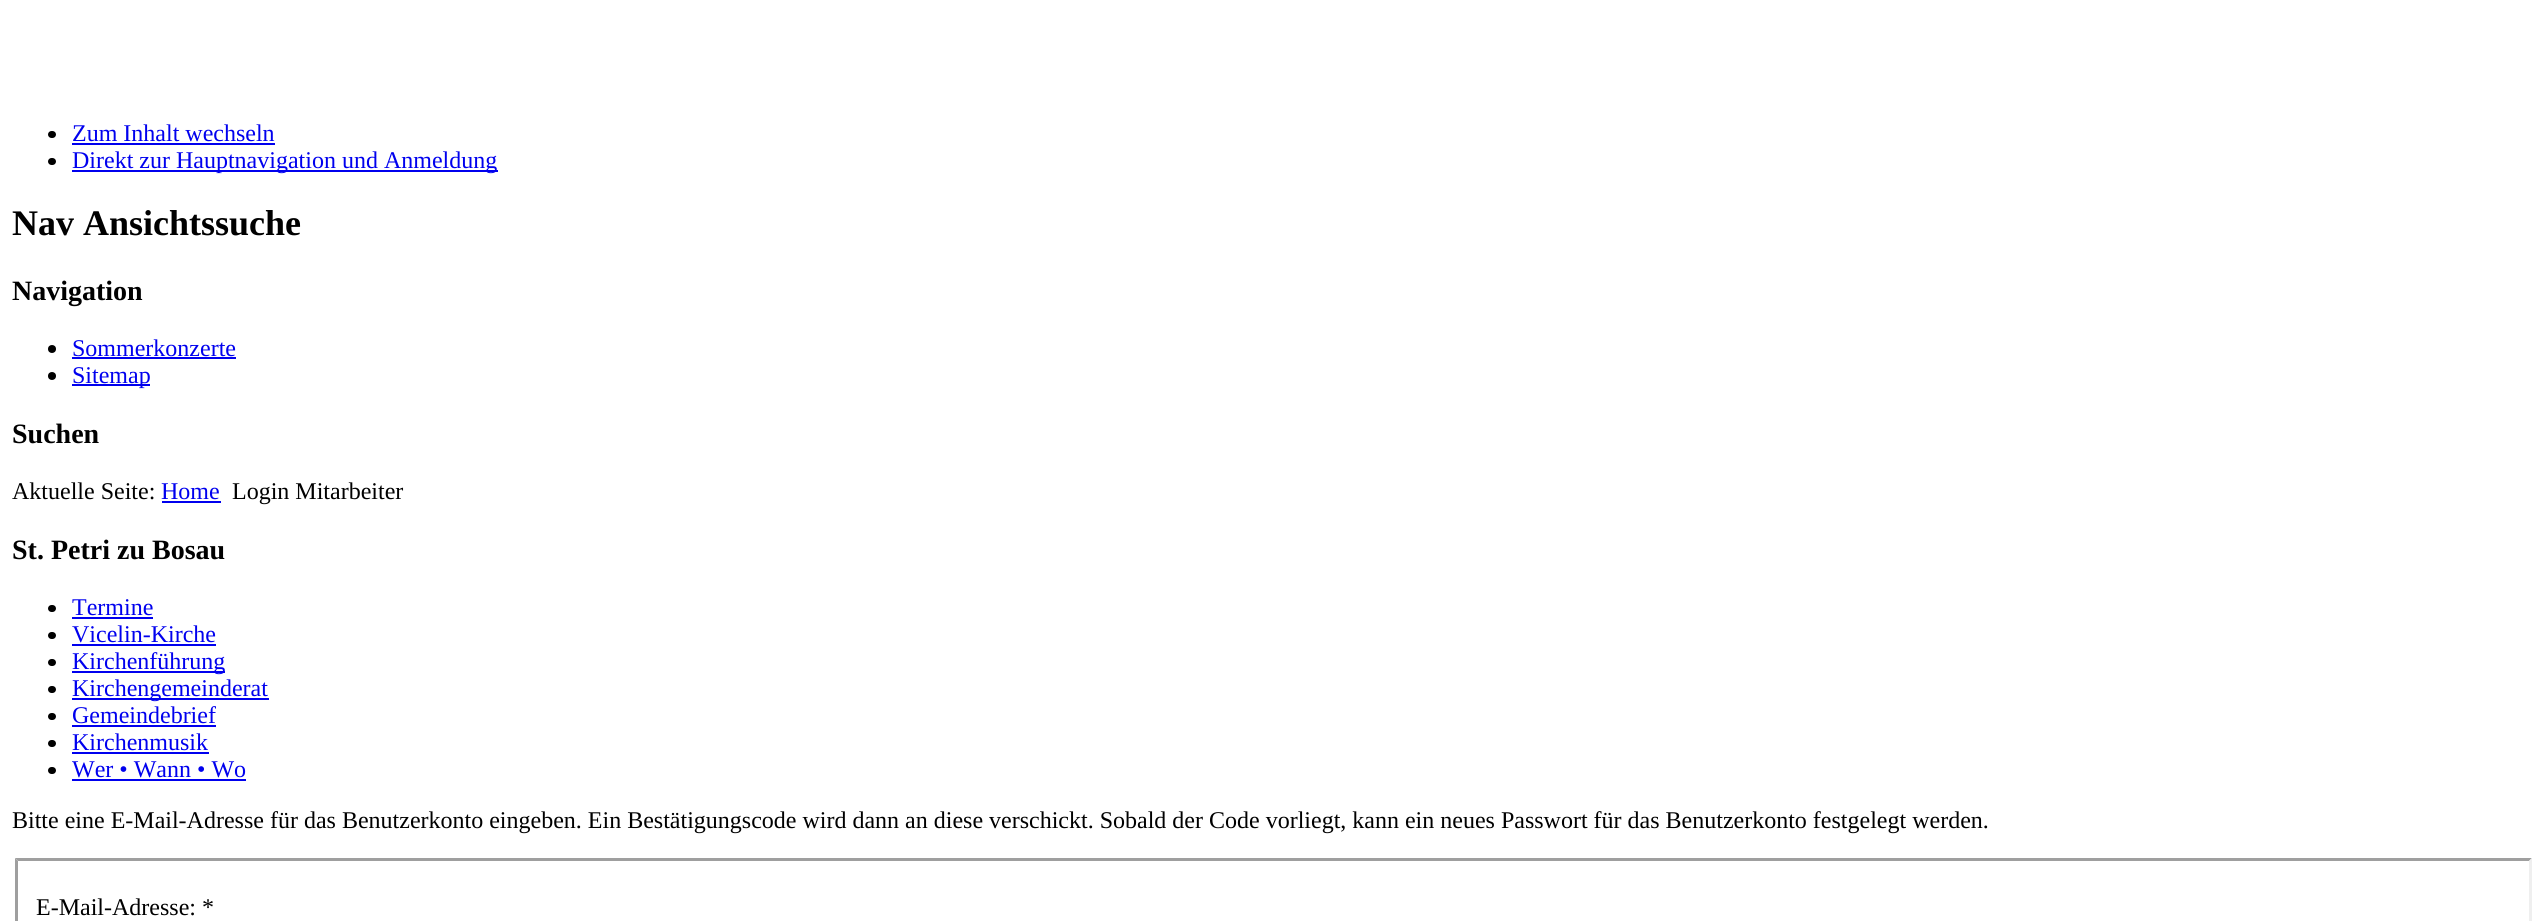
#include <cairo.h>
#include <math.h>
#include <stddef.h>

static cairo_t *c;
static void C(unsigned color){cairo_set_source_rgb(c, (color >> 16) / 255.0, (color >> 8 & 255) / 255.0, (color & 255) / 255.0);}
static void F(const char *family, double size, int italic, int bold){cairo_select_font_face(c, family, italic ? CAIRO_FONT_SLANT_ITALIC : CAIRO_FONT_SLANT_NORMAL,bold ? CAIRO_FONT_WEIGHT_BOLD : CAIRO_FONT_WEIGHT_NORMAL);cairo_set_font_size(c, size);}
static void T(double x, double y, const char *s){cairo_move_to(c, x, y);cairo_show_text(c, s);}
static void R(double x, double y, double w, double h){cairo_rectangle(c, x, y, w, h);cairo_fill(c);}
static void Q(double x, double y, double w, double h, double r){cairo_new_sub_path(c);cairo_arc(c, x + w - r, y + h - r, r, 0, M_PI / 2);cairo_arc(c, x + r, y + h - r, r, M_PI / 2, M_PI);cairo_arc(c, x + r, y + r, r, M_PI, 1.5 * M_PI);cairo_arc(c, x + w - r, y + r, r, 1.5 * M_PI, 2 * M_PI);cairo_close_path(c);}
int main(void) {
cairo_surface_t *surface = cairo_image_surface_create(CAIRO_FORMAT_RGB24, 2546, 921);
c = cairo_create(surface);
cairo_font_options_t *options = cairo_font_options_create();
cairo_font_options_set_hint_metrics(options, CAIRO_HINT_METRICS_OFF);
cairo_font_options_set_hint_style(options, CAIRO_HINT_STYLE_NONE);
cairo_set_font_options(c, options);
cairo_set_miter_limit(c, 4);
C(0xffffff);
cairo_paint(c);
C(0x000000);
Q(48,131,8,7,3.5);
cairo_fill(c);
F("Liberation Serif",24,0,0);
C(0x0000ee);
T(72,141,"Zum Inhalt wechseln");
R(72,143,203,2);
C(0x000000);
Q(48,158,8,7,3.5);
cairo_fill(c);
C(0x0000ee);
R(72,170,426,2);
T(72,168,"Direkt zur Hauptnavigation und Anmeldung");
F("Liberation Serif",36,0,1);
C(0x000000);
T(12,235,"Nav Ansichtssuche");
F("Liberation Serif",28,0,1);
T(12,300,"Navigation");
cairo_new_path(c);
cairo_arc(c,52,349,4,0,2 * M_PI);
cairo_fill(c);
F("Liberation Serif",24,0,0);
C(0x0000ee);
T(72,356,"Sommerkonzerte");
R(72,357,164,2);
C(0x000000);
cairo_new_path(c);
cairo_arc(c,52,376,4,0,2 * M_PI);
cairo_fill(c);
C(0x0000ee);
R(72,384,78,2);
T(72,383,"Sitemap");
F("Liberation Serif",28,0,1);
C(0x000000);
T(12,443,"Suchen");
F("Liberation Serif",24,0,0);
T(12,499,"Aktuelle Seite:");
C(0x0000ee);
T(161,499,"Home");
R(162,501,59,2);
C(0x000000);
T(232,499,"Login Mitarbeiter");
F("Liberation Serif",28,0,1);
T(12,559,"St. Petri zu Bosau");
Q(48,605,8,7,3.5);
cairo_fill(c);
F("Liberation Serif",24,0,0);
C(0x0000ee);
T(72,615,"Termine");
R(72,617,81,2);
C(0x000000);
Q(48,632,8,7,3.5);
cairo_fill(c);
C(0x0000ee);
T(72,642,"Vicelin-Kirche");
R(72,644,144,2);
C(0x000000);
Q(48,659,8,7,3.5);
cairo_fill(c);
C(0x0000ee);
R(72,671,153,2);
T(72,669,"Kirchenführung");
C(0x000000);
Q(48,686,8,7,3.5);
cairo_fill(c);
C(0x0000ee);
R(72,698,197,2);
T(72,696,"Kirchengemeinderat");
C(0x000000);
Q(48,713,8,7,3.5);
cairo_fill(c);
C(0x0000ee);
T(72,723,"Gemeindebrief");
R(72,725,144,2);
C(0x000000);
Q(48,740,8,7,3.5);
cairo_fill(c);
C(0x0000ee);
T(72,750,"Kirchenmusik");
R(72,752,137,2);
C(0x000000);
Q(48,767,8,7,3.5);
cairo_fill(c);
C(0x0000ee);
T(72,777,"Wer • Wann • Wo");
R(72,779,174,2);
C(0x000000);
T(12,828,"Bitte eine E-Mail-Adresse für das Benutzerkonto eingeben. Ein Bestätigungscode wird dann an diese verschickt. Sobald der Code vorliegt, kann ein neues Passwort für das Benutzerkonto festgelegt werden.");
C(0x9f9f9f);
cairo_new_path(c);
cairo_move_to(c,15,858);
cairo_line_to(c,2532,858);
cairo_line_to(c,2529,861);
cairo_line_to(c,18,861);
cairo_close_path(c);
cairo_fill(c);
C(0xefefef);
cairo_new_path(c);
cairo_move_to(c,2532,858);
cairo_line_to(c,2532,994);
cairo_line_to(c,2529,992);
cairo_line_to(c,2529,861);
cairo_close_path(c);
cairo_fill(c);
C(0x9f9f9f);
cairo_new_path(c);
cairo_move_to(c,15,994);
cairo_line_to(c,15,858);
cairo_line_to(c,18,861);
cairo_line_to(c,18,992);
cairo_close_path(c);
cairo_fill(c);
C(0x000000);
T(36,915,"E-Mail-Adresse: *");
cairo_surface_write_to_png(surface, "o.png");
cairo_font_options_destroy(options);
cairo_destroy(c);
cairo_surface_destroy(surface);
return 0;
}
